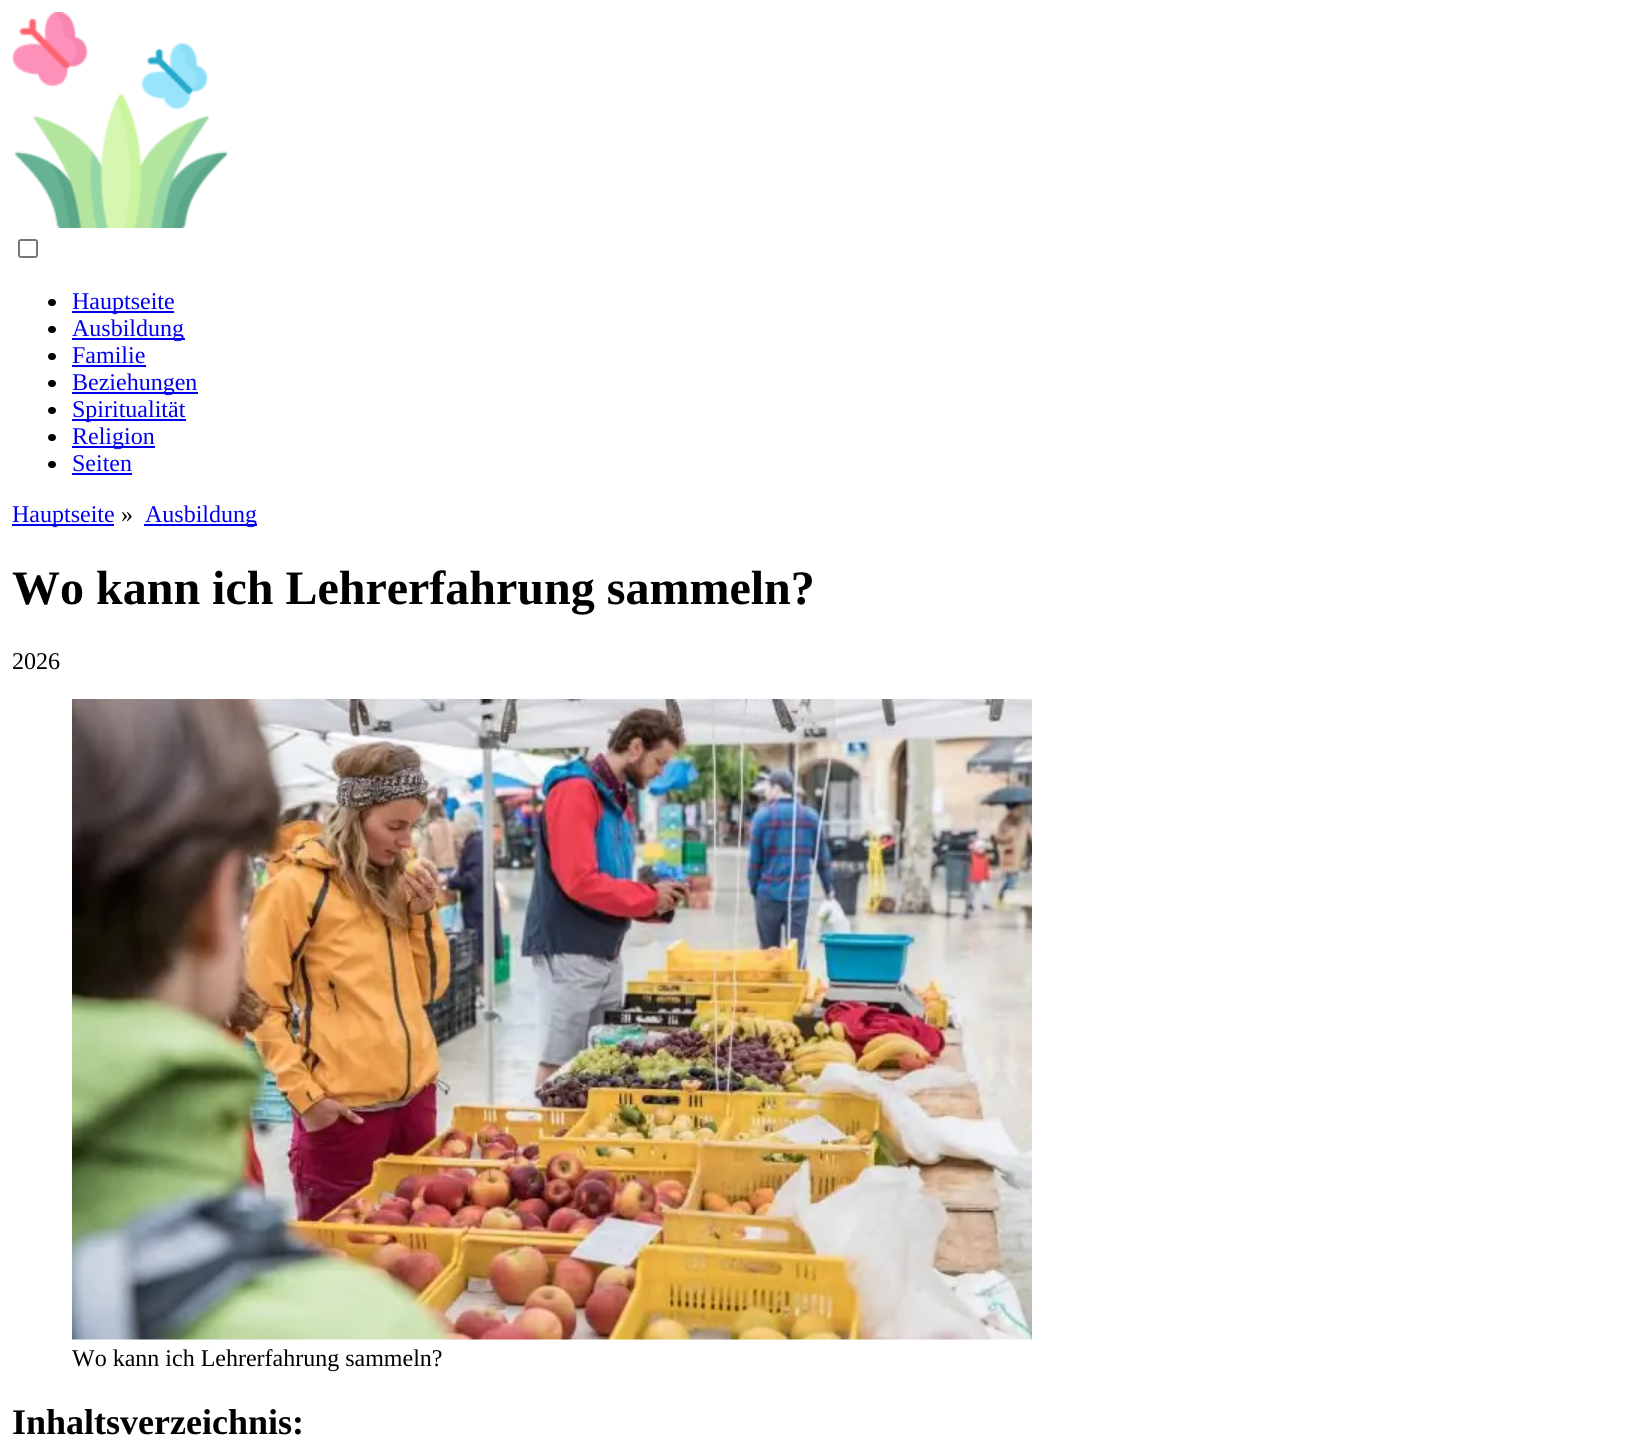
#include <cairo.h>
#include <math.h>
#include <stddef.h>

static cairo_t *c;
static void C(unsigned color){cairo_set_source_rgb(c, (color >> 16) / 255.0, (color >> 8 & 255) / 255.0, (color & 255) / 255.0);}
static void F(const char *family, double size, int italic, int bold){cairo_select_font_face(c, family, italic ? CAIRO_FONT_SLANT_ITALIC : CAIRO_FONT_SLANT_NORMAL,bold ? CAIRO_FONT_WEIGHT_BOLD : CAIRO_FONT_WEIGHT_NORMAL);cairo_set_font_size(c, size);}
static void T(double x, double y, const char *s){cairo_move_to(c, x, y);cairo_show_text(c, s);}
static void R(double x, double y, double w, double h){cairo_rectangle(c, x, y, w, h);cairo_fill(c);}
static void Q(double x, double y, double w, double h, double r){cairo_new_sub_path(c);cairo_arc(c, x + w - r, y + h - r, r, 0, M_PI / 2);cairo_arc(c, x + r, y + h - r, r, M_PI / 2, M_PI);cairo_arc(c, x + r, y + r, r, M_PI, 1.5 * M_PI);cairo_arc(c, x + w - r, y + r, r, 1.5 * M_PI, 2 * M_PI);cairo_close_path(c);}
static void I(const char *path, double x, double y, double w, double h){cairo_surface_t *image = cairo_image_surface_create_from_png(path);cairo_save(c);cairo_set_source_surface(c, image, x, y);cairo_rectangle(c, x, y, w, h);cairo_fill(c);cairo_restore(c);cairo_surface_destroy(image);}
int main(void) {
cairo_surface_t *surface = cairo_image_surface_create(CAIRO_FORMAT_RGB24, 1626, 1442);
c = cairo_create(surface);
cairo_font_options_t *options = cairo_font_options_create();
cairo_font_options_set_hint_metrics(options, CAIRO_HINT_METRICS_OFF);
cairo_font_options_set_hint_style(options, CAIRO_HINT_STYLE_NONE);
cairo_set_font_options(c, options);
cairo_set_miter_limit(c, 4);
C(0xffffff);
cairo_paint(c);
I("1.png",12,12,216,216);
Q(19,240,18,17,2);
C(0x767676);
cairo_stroke(c);
C(0x000000);
Q(48,299,8,7,3.5);
cairo_fill(c);
C(0x0000ee);
R(72,311,102,2);
F("Liberation Serif",24,0,0);
T(72,309,"Hauptseite");
C(0x000000);
Q(48,326,8,7,3.5);
cairo_fill(c);
C(0x0000ee);
R(72,338,113,2);
T(72,336,"Ausbildung");
C(0x000000);
Q(48,353,8,7,3.5);
cairo_fill(c);
C(0x0000ee);
T(72,363,"Familie");
R(72,365,74,2);
C(0x000000);
Q(48,380,8,7,3.5);
cairo_fill(c);
C(0x0000ee);
R(72,392,126,2);
T(72,390,"Beziehungen");
C(0x000000);
Q(48,407,8,7,3.5);
cairo_fill(c);
C(0x0000ee);
R(72,419,114,2);
T(72,417,"Spiritualität");
C(0x000000);
Q(48,434,8,7,3.5);
cairo_fill(c);
C(0x0000ee);
R(72,446,83,2);
T(72,444,"Religion");
C(0x000000);
Q(48,461,8,7,3.5);
cairo_fill(c);
C(0x0000ee);
T(72,471,"Seiten");
R(72,473,60,2);
R(12,524,102,2);
T(12,522,"Hauptseite");
C(0x000000);
T(121,522,"»");
C(0x0000ee);
R(144,524,113,2);
T(145,522,"Ausbildung");
F("Liberation Serif",48,0,1);
C(0x000000);
T(12,604,"Wo kann ich Lehrerfahrung sammeln?");
F("Liberation Serif",24,0,0);
T(12,669,"2026");
I("2.png",72,699,960,641);
T(72,1366,"Wo kann ich Lehrerfahrung sammeln?");
F("Liberation Serif",36,0,1);
T(12,1434,"Inhaltsverzeichnis:");
cairo_surface_write_to_png(surface, "o.png");
cairo_font_options_destroy(options);
cairo_destroy(c);
cairo_surface_destroy(surface);
return 0;
}
